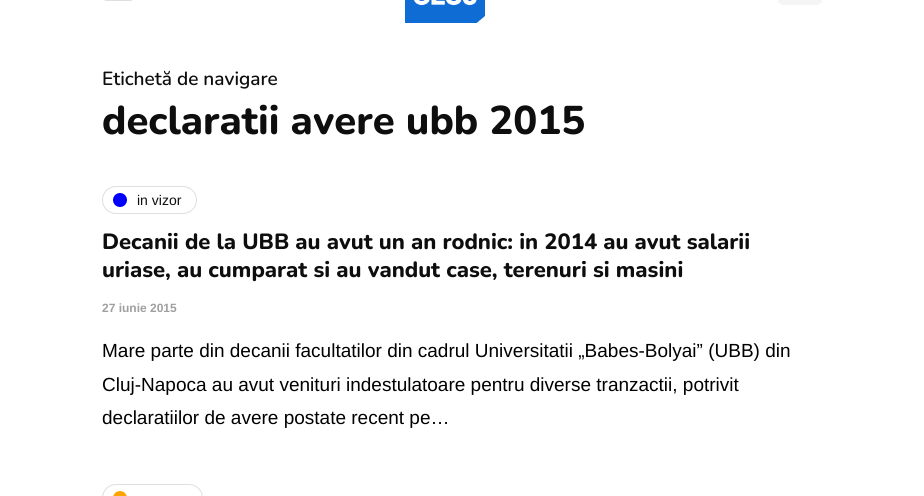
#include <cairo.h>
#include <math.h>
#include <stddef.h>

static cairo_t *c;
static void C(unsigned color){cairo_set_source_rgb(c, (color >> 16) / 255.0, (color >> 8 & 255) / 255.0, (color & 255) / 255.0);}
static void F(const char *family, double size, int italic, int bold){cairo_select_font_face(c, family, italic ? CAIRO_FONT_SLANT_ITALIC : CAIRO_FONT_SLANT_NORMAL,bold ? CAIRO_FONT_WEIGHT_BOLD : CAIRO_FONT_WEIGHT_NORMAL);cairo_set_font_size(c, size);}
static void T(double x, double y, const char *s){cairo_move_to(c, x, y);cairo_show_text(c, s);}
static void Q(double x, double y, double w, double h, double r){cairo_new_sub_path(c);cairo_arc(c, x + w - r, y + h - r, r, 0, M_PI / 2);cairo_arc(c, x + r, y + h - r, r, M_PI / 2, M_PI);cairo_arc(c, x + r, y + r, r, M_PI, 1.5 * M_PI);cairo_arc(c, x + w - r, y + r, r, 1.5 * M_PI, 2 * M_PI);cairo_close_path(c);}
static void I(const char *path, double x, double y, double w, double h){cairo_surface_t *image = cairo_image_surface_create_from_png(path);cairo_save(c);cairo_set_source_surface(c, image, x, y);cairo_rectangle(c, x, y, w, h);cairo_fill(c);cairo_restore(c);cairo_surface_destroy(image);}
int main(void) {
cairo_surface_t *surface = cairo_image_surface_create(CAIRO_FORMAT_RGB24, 924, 496);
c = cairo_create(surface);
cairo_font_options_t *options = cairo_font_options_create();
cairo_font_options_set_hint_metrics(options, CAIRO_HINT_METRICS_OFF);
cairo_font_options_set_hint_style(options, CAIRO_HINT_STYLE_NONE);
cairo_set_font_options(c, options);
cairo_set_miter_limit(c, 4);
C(0xffffff);
cairo_paint(c);
Q(102.5,-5.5,32,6,4.5);
C(0xe0dede);
cairo_set_line_width(c,1);
cairo_stroke(c);
I("1.png",405,0,80,23);
C(0xf5f5f5);
Q(778,-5,44,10,5);
cairo_fill(c);
F("Nunito SemiBold",19,0,0);
C(0x0f0e0e);
T(102,85,"Etichetă de navigare");
F("Nunito ExtraBold",40,0,0);
T(102,134,"declaratii avere ubb 2015");
Q(102.5,186.5,94,27,13.5);
C(0xe0dede);
cairo_stroke(c);
C(0x0000ff);
cairo_arc(c,120,200,7,0,2 * M_PI);
cairo_fill(c);
F("Liberation Sans",14,0,0);
C(0x0f0e0e);
T(137,205,"in vizor");
F("Nunito ExtraBold",22,0,0);
T(102,249,"Decanii de la UBB au avut un an rodnic: in 2014 au avut salarii");
T(102,277,"uriase, au cumparat si au vandut case, terenuri si masini");
F("Liberation Sans",12,0,1);
C(0x9f9f9f);
T(102,312,"27 iunie 2015");
F("Liberation Sans",19,0,0);
C(0x000000);
T(102,357,"Mare parte din decanii facultatilor din cadrul Universitatii „Babes-Bolyai” (UBB) din");
T(102,391,"Cluj-Napoca au avut venituri indestulatoare pentru diverse tranzactii, potrivit");
T(102,424,"declaratiilor de avere postate recent pe…");
Q(102.5,484.5,100,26,13.5);
C(0xe0dede);
cairo_stroke(c);
C(0xffa500);
Q(113,491,14,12,7);
cairo_fill(c);
cairo_surface_write_to_png(surface, "o.png");
cairo_font_options_destroy(options);
cairo_destroy(c);
cairo_surface_destroy(surface);
return 0;
}
